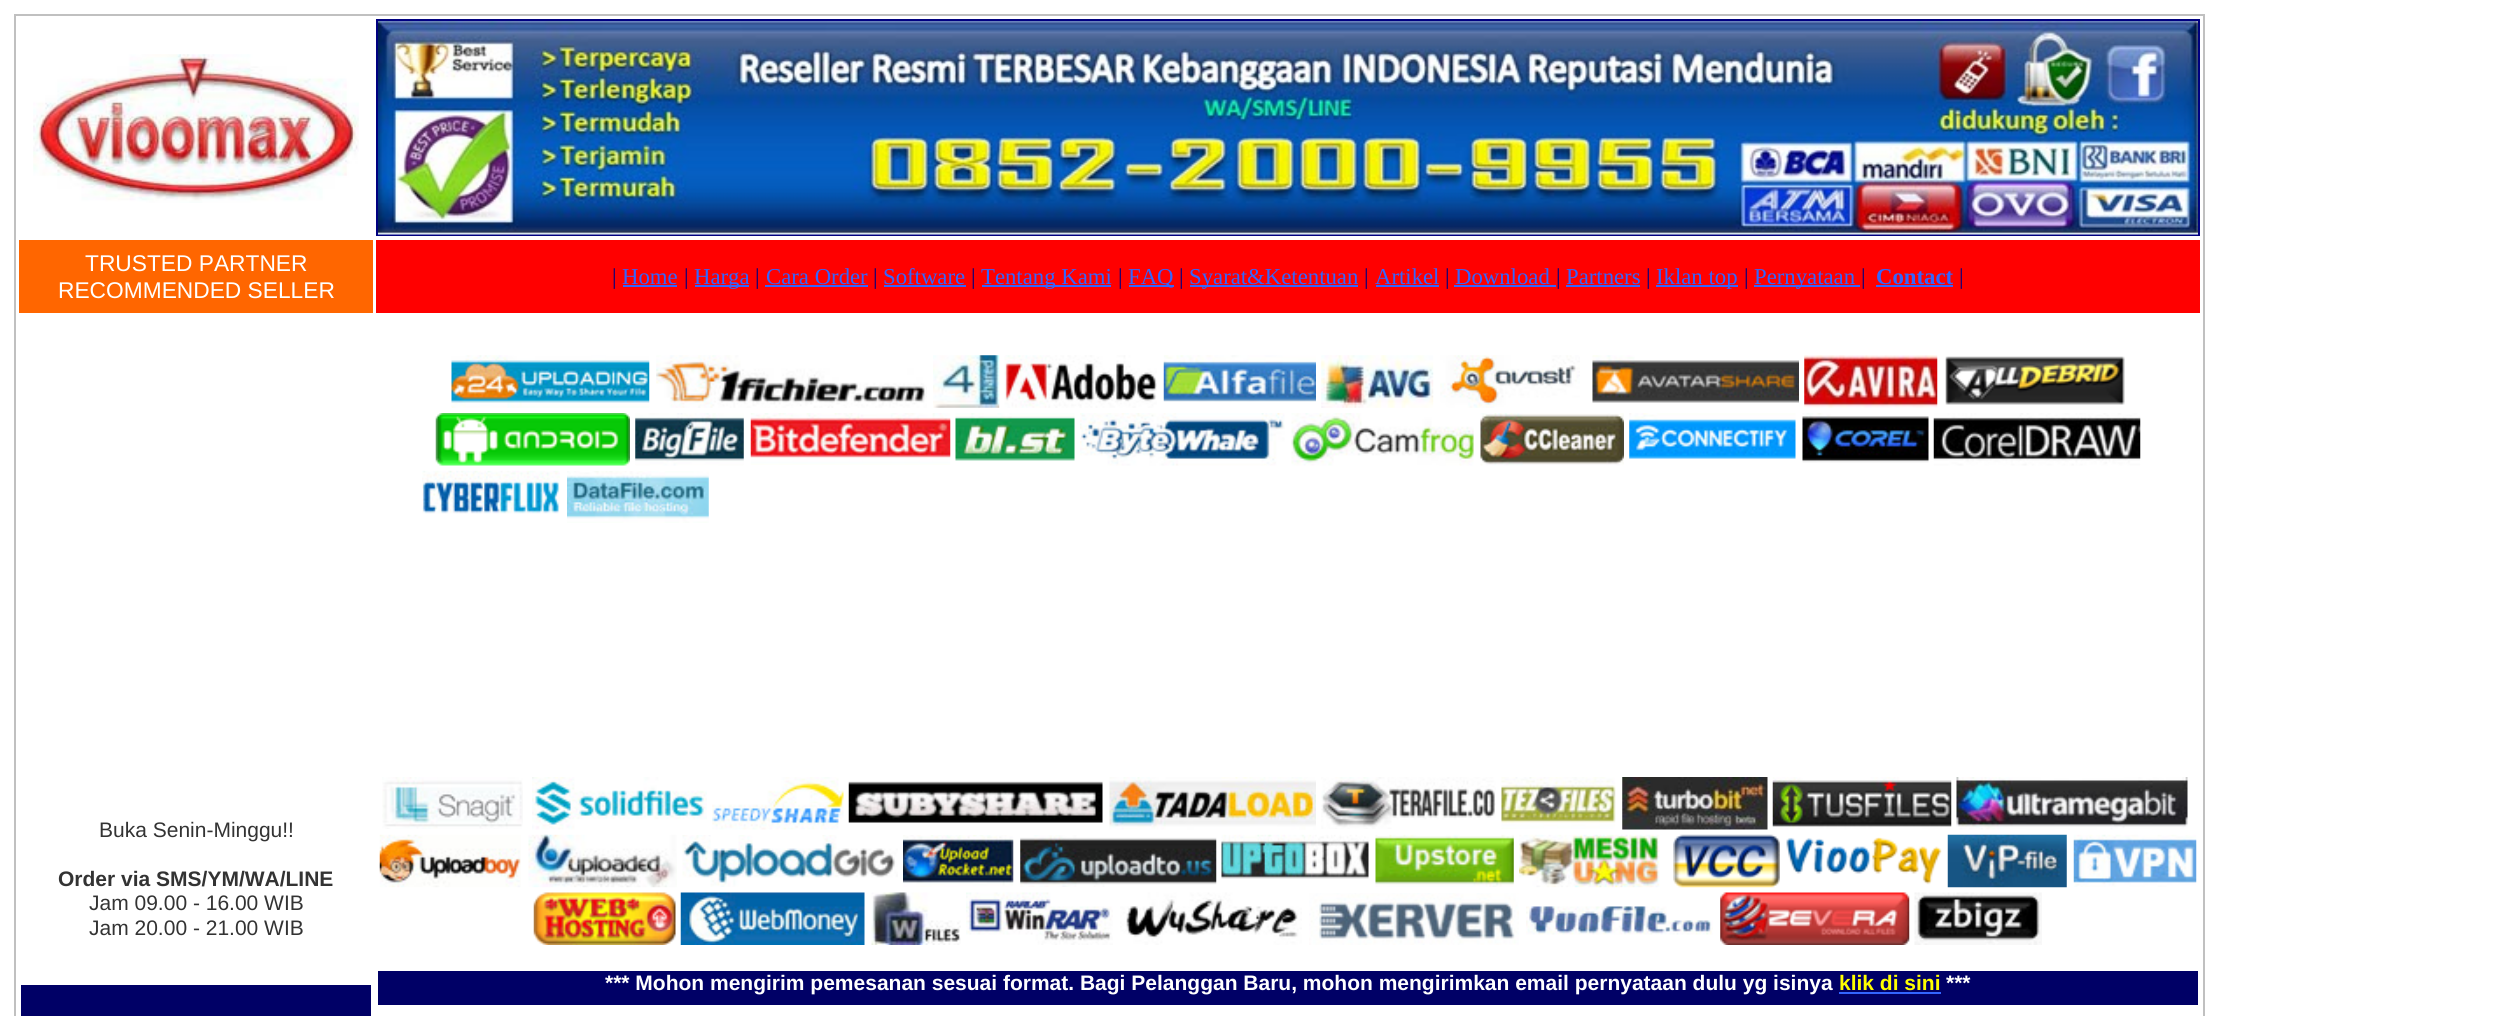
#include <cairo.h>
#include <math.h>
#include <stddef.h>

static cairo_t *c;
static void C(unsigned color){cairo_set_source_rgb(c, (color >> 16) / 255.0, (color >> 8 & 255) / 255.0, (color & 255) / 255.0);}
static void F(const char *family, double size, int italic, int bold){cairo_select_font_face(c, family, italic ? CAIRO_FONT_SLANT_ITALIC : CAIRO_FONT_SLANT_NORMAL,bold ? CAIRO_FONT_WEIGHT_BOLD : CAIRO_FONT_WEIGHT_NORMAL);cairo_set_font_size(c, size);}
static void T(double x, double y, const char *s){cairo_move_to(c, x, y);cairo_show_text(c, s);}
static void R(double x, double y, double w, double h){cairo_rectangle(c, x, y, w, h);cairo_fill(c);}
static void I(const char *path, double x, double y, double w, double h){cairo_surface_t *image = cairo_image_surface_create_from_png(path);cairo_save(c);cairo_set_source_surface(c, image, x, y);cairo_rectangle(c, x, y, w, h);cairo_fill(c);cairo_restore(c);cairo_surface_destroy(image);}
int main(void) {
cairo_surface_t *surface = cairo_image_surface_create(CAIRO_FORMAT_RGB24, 2515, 1016);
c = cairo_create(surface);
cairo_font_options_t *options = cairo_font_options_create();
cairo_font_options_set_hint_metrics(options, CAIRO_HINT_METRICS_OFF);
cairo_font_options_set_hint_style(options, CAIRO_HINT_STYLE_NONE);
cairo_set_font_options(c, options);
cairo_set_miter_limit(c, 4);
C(0xffffff);
cairo_paint(c);
cairo_rectangle(c,15,15,2189,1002);
C(0xc0c0c0);
cairo_stroke(c);
I("1.png",33,54,326,149);
C(0x000080);
R(376,19,1824,217);
I("2.png",378,21,1820,214);
C(0xff6600);
R(19,240,354,73);
F("Liberation Sans",22.75,0,0);
C(0xffffff);
T(85,271,"TRUSTED PARTNER");
T(58,298,"RECOMMENDED SELLER");
C(0xff0000);
R(376,240,1824,73);
F("Liberation Serif",22.75,0,0);
C(0x000080);
T(612,284,"|");
C(0x3366ff);
T(622,284,"Home");
R(623,285,54,2);
C(0x000080);
T(684,284,"|");
C(0x3366ff);
R(695,285,54,2);
T(694,284,"Harga");
C(0x000080);
T(755,284,"|");
C(0x3366ff);
T(766,284,"Cara Order");
R(765,285,103,2);
C(0x000080);
T(873,284,"|");
C(0x3366ff);
T(883,284,"Software");
R(884,285,82,2);
C(0x000080);
T(971,284,"|");
C(0x3366ff);
R(982,285,129,2);
T(981,284,"Tentang Kami");
C(0x000080);
T(1118,284,"|");
C(0x3366ff);
R(1129,285,45,2);
T(1128,284,"FAQ");
C(0x000080);
T(1179,284,"|");
C(0x3366ff);
R(1190,285,168,2);
T(1189,284,"Syarat&Ketentuan");
C(0x000080);
T(1364,284,"|");
C(0x3366ff);
T(1375,284,"Artikel");
R(1376,285,63,2);
C(0x000080);
T(1445,284,"|");
C(0x3366ff);
T(1455,284,"Download");
C(0x000080);
T(1556,284,"|");
C(0x3366ff);
R(1454,285,102,2);
T(1566,284,"Partners");
R(1566,285,74,2);
C(0x000080);
T(1646,284,"|");
C(0x3366ff);
R(1656,285,82,2);
T(1656,284,"Iklan top");
C(0x000080);
T(1744,284,"|");
C(0x3366ff);
R(1754,285,106,2);
T(1754,284,"Pernyataan");
C(0x000080);
T(1861,284,"|");
F("Liberation Serif",22.75,0,1);
C(0x3366ff);
T(1876,284,"Contact");
R(1876,285,77,2);
F("Liberation Serif",22.75,0,0);
C(0x000080);
T(1959,284,"|");
F("Liberation Sans",21,0,0);
C(0x333333);
T(99,837,"Buka Senin-Minggu!!");
F("Liberation Sans",21,0,1);
T(58,886,"Order via SMS/YM/WA/LINE");
F("Liberation Sans",21,0,0);
T(89,910,"Jam 09.00 - 16.00 WIB");
T(89,935,"Jam 20.00 - 21.00 WIB");
C(0x000066);
R(21,985,350,31);
I("3.png",451,355,199,53);
I("4.png",656,355,271,53);
I("5.png",933,355,67,53);
I("6.png",1004,355,153,53);
I("7.png",1163,355,153,47);
I("8.png",1321,355,113,53);
I("9.png",1440,355,140,53);
I("10.png",1592,355,207,48);
I("11.png",1804,355,134,53);
I("12.png",1945,356,180,49);
I("13.png",435,413,195,53);
I("14.png",635,413,109,53);
I("15.png",750,413,201,52);
I("16.png",955,413,120,48);
I("17.png",1080,413,205,53);
I("18.png",1291,413,183,53);
I("19.png",1480,413,144,53);
I("20.png",1629,413,167,46);
I("21.png",1802,413,127,50);
I("22.png",1933,413,208,53);
I("23.png",422,470,138,44);
I("24.png",567,471,142,52);
I("25.png",382,777,141,52);
I("26.png",532,777,175,53);
I("27.png",712,777,132,53);
I("28.png",848,781,255,42);
I("29.png",1109,777,207,53);
I("30.png",1321,777,175,52);
I("31.png",1501,777,115,52);
I("32.png",1622,777,146,53);
I("33.png",1772,777,180,53);
I("34.png",1956,777,232,53);
I("35.png",379,834,142,54);
I("36.png",528,834,149,54);
I("37.png",682,835,216,52);
I("38.png",903,835,111,52);
I("39.png",1020,835,197,52);
I("40.png",1221,834,148,45);
I("41.png",1375,834,139,53);
I("42.png",1519,834,141,54);
I("43.png",1673,834,107,54);
I("44.png",1786,837,156,48);
I("45.png",1947,834,120,54);
I("46.png",2073,834,124,53);
I("47.png",533,892,143,53);
I("48.png",680,892,185,53);
I("49.png",871,892,90,53);
I("50.png",966,892,147,53);
I("51.png",1120,892,182,53);
I("52.png",1309,893,210,52);
I("53.png",1526,906,187,29);
I("54.png",1720,892,190,53);
I("55.png",1914,892,128,53);
R(378,971,1820,34);
F("Liberation Sans",21,0,1);
C(0xffffff);
T(605,990,"*** Mohon mengirim pemesanan sesuai format. Bagi Pelanggan Baru, mohon mengirimkan email pernyataan dulu yg isinya");
C(0xffff00);
T(1839,990,"klik di sini");
C(0x3366ff);
R(1839,992,102,2);
C(0xffffff);
T(1946,990,"***");
cairo_surface_write_to_png(surface, "o.png");
cairo_font_options_destroy(options);
cairo_destroy(c);
cairo_surface_destroy(surface);
return 0;
}
